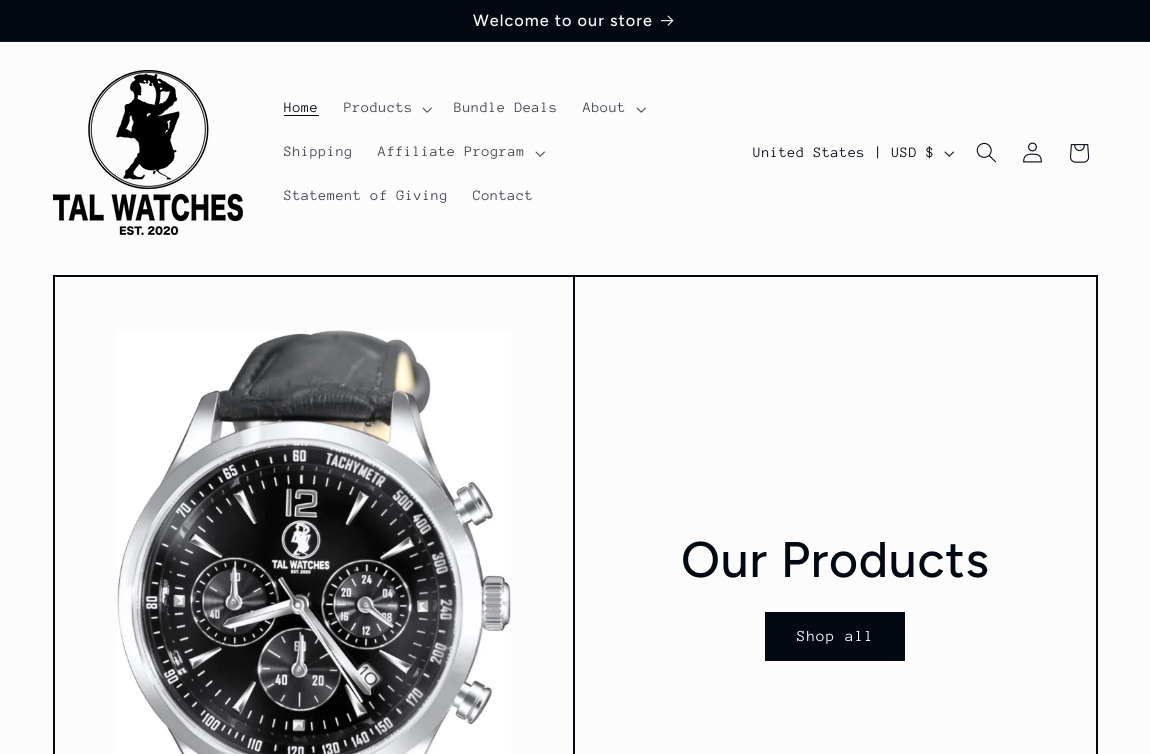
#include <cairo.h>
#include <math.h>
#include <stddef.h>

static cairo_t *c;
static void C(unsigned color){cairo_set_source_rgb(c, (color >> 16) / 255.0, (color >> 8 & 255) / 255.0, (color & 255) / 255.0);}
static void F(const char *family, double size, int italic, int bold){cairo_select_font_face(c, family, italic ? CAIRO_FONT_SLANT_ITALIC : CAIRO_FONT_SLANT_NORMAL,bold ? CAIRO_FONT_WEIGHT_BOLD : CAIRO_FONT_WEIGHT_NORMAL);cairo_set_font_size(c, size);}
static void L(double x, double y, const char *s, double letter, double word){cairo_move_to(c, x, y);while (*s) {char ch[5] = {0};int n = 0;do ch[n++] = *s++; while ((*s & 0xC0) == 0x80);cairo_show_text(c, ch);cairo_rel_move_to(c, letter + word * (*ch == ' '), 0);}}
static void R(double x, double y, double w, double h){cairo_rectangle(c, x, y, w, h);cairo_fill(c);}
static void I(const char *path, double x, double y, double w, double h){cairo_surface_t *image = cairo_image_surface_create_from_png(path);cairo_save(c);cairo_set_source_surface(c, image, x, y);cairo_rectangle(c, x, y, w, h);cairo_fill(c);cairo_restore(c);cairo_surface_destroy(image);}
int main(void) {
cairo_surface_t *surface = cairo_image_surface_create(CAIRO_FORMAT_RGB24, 1150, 754);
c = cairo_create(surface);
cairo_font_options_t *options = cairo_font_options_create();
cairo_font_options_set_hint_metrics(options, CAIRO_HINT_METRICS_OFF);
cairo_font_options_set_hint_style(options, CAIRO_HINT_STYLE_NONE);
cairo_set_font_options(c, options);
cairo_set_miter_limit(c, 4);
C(0xfcfcfc);
cairo_paint(c);
C(0x020912);
R(0,0,1150,41);
C(0x161c25);
R(0,41,1150,1);
F("Figtree Medium",16.25,0,0);
C(0xfcfcfc);
L(473,26,"Welcome to our store",1.05,0);
I("1.png",661,15,13,11);
I("2.png",53,70,190,165);
F("Anonymous Pro",14.75,0,0);
C(0x020912);
L(284,112,"Home",.6,0);
R(284,115,35,1);
C(0x41464d);
L(344,112,"Products",.6,0);
I("3.png",422,107,10,6);
L(454,112,"Bundle Deals",.6,0);
L(583,112,"About",.6,0);
I("3.png",636,107,10,6);
L(284,156,"Shipping",.6,0);
L(378,156,"Affiliate Program",.6,0);
I("3.png",535,151,10,6);
L(284,200,"Statement of Giving",.6,0);
L(473,200,"Contact",.6,0);
C(0x020912);
L(753,157,"United States | USD $",.6,0);
I("4.png",944,151,10,6);
I("5.png",976,142,20,21);
I("6.png",1023,142,19,21);
I("7.png",1070,144,20,19);
cairo_rectangle(c,54,276,520,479);
cairo_stroke(c);
I("8.png",117,330,394,424);
R(575,275,523,2);
R(1096,275,2,479);
F("Figtree Medium",50,0,0);
L(681,577,"Our Products",.75,0);
R(765,612,140,49);
F("Anonymous Pro",15.75,0,0);
C(0xfcfcfc);
L(797,641,"Shop all",1.05,0);
cairo_surface_write_to_png(surface, "o.png");
cairo_font_options_destroy(options);
cairo_destroy(c);
cairo_surface_destroy(surface);
return 0;
}
